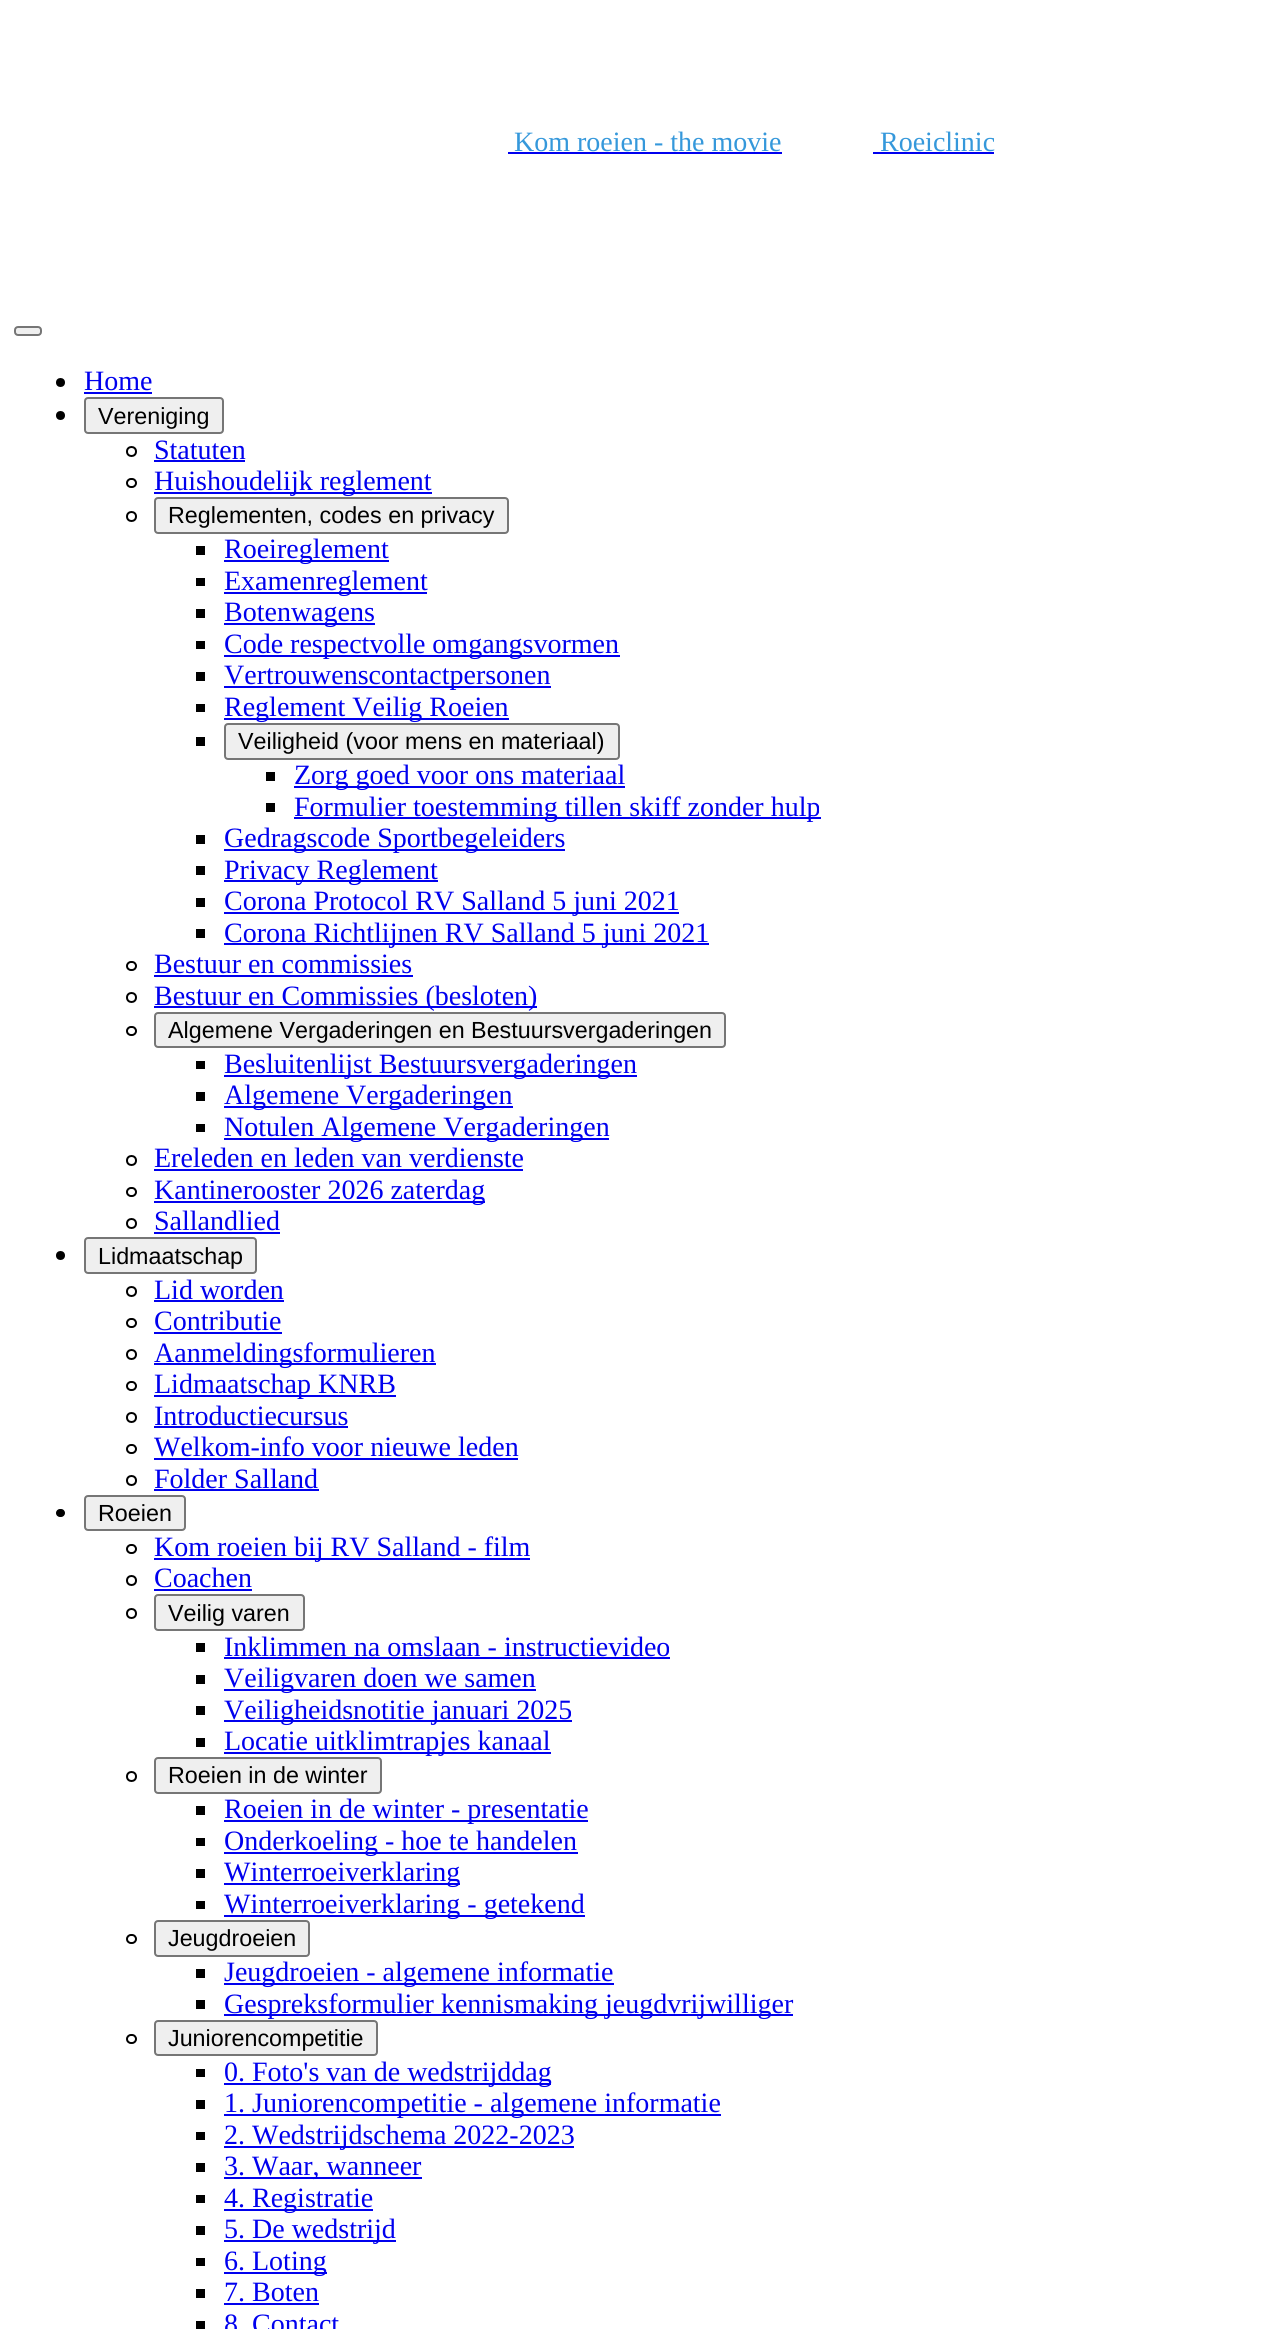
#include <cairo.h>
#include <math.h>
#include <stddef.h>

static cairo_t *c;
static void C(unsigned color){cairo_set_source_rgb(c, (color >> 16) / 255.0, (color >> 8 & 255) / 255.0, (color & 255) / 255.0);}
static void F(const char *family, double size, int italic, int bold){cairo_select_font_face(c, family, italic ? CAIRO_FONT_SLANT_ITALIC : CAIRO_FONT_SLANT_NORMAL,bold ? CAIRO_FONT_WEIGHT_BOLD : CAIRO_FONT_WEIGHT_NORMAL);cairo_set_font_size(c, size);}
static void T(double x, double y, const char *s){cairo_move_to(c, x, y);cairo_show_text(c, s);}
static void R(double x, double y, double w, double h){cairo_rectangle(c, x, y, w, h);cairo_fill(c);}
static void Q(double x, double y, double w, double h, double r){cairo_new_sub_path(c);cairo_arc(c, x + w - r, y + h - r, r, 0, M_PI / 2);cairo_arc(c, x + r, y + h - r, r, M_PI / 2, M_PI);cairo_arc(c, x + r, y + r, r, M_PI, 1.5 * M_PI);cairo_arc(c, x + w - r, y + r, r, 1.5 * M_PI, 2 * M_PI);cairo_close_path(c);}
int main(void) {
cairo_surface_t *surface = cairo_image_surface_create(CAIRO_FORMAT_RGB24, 1283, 2329);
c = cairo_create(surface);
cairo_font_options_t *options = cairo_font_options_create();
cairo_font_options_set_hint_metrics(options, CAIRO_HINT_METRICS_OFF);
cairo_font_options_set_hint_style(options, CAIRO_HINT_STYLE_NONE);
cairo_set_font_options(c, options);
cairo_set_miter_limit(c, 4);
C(0xffffff);
cairo_paint(c);
F("Liberation Serif",28,0,0);
C(0x3598db);
T(514,151,"Kom roeien - the movie");
C(0x0000ee);
R(508,152,274,2);
C(0x3598db);
T(880,151,"Roeiclinic");
C(0x0000ee);
R(873,152,121,2);
C(0xefefef);
Q(15,327,26,8,3);
cairo_fill_preserve(c);
C(0x767676);
cairo_stroke(c);
C(0x000000);
cairo_arc(c,60.5,382.5,4.5,0,2 * M_PI);
cairo_fill(c);
C(0x0000ee);
T(84,390,"Home");
R(84,392,68,2);
C(0x000000);
cairo_new_path(c);
cairo_arc(c,60.5,415.5,4.5,0,2 * M_PI);
cairo_fill(c);
C(0xefefef);
Q(85,398,138,35,3);
cairo_fill_preserve(c);
C(0x767676);
cairo_stroke(c);
F("Liberation Sans",23.3,0,0);
C(0x000000);
T(98,424,"Vereniging");
cairo_new_path(c);
cairo_arc(c,131.5,451.5,4.5,0,2 * M_PI);
cairo_stroke(c);
F("Liberation Serif",28,0,0);
C(0x0000ee);
T(154,459,"Statuten");
R(154,460,91,2);
Q(127,479,9,8,4);
C(0x000000);
cairo_stroke(c);
C(0x0000ee);
R(154,492,278,2);
T(154,490,"Huishoudelijk reglement");
cairo_new_path(c);
cairo_arc(c,131.5,516.5,4.5,0,2 * M_PI);
C(0x000000);
cairo_stroke(c);
C(0xefefef);
Q(155,498,353,35,3);
cairo_fill_preserve(c);
C(0x767676);
cairo_stroke(c);
F("Liberation Sans",23.3,0,0);
C(0x000000);
T(168,523,"Reglementen, codes en privacy");
R(196,546,9,9);
C(0x0000ee);
R(224,560,165,2);
F("Liberation Serif",28,0,0);
T(224,558,"Roeireglement");
C(0x000000);
R(196,578,9,8);
C(0x0000ee);
R(224,592,203,2);
T(224,590,"Examenreglement");
C(0x000000);
R(196,609,9,9);
C(0x0000ee);
R(224,623,151,2);
T(224,621,"Botenwagens");
C(0x000000);
R(196,641,9,8);
C(0x0000ee);
R(224,655,396,2);
T(224,653,"Code respectvolle omgangsvormen");
C(0x000000);
R(196,672,9,9);
C(0x0000ee);
R(224,686,327,2);
T(224,684,"Vertrouwenscontactpersonen");
C(0x000000);
R(196,704,9,8);
C(0x0000ee);
R(224,718,285,2);
T(224,716,"Reglement Veilig Roeien");
C(0x000000);
R(196,737,9,9);
C(0xefefef);
Q(225,724,394,35,3);
cairo_fill_preserve(c);
C(0x767676);
cairo_stroke(c);
F("Liberation Sans",23.3,0,0);
C(0x000000);
T(238,749,"Veiligheid (voor mens en materiaal)");
R(266,772,9,9);
C(0x0000ee);
R(294,786,331,2);
F("Liberation Serif",28,0,0);
T(294,784,"Zorg goed voor ons materiaal");
C(0x000000);
R(266,803,9,9);
C(0x0000ee);
R(294,817,527,2);
T(294,816,"Formulier toestemming tillen skiff zonder hulp");
C(0x000000);
R(196,835,9,9);
C(0x0000ee);
R(224,849,341,2);
T(224,847,"Gedragscode Sportbegeleiders");
C(0x000000);
R(196,866,9,9);
C(0x0000ee);
R(224,880,214,2);
T(224,879,"Privacy Reglement");
C(0x000000);
R(196,898,9,9);
C(0x0000ee);
R(224,912,455,2);
T(224,910,"Corona Protocol RV Salland 5 juni 2021");
C(0x000000);
R(196,929,9,9);
C(0x0000ee);
R(224,943,485,2);
T(224,942,"Corona Richtlijnen RV Salland 5 juni 2021");
Q(127,962,9,8,4);
C(0x000000);
cairo_stroke(c);
C(0x0000ee);
T(154,973,"Bestuur en commissies");
R(154,975,259,2);
cairo_new_path(c);
cairo_arc(c,131.5,997.5,4.5,0,2 * M_PI);
C(0x000000);
cairo_stroke(c);
C(0x0000ee);
R(154,1006,383,2);
T(154,1005,"Bestuur en Commissies (besloten)");
Q(127,1027,9,8,4);
C(0x000000);
cairo_stroke(c);
C(0xefefef);
Q(155,1013,570,34,3);
cairo_fill_preserve(c);
C(0x767676);
cairo_stroke(c);
F("Liberation Sans",23.3,0,0);
C(0x000000);
T(168,1038,"Algemene Vergaderingen en Bestuursvergaderingen");
R(196,1061,9,8);
C(0x0000ee);
R(224,1075,413,2);
F("Liberation Serif",28,0,0);
T(224,1073,"Besluitenlijst Bestuursvergaderingen");
C(0x000000);
R(196,1092,9,9);
C(0x0000ee);
R(224,1106,289,2);
T(224,1104,"Algemene Vergaderingen");
C(0x000000);
R(196,1124,9,8);
C(0x0000ee);
R(224,1138,385,2);
T(224,1136,"Notulen Algemene Vergaderingen");
cairo_new_path(c);
cairo_arc(c,131.5,1160.5,4.5,0,2 * M_PI);
C(0x000000);
cairo_stroke(c);
C(0x0000ee);
T(154,1167,"Ereleden en leden van verdienste");
R(154,1169,369,2);
Q(127,1188,9,8,4);
C(0x000000);
cairo_stroke(c);
C(0x0000ee);
R(154,1201,331,2);
T(154,1199,"Kantinerooster 2026 zaterdag");
cairo_new_path(c);
cairo_arc(c,131.5,1223.5,4.5,0,2 * M_PI);
C(0x000000);
cairo_stroke(c);
C(0x0000ee);
T(154,1230,"Sallandlied");
R(154,1232,126,2);
C(0x000000);
cairo_new_path(c);
cairo_arc(c,60.5,1255.5,4.5,0,2 * M_PI);
cairo_fill(c);
C(0xefefef);
Q(85,1238,171,35,3);
cairo_fill_preserve(c);
C(0x767676);
cairo_stroke(c);
F("Liberation Sans",23.3,0,0);
C(0x000000);
T(98,1264,"Lidmaatschap");
cairo_new_path(c);
cairo_arc(c,131.5,1291.5,4.5,0,2 * M_PI);
cairo_stroke(c);
F("Liberation Serif",28,0,0);
C(0x0000ee);
T(154,1299,"Lid worden");
R(154,1300,130,2);
Q(127,1319,9,8,4);
C(0x000000);
cairo_stroke(c);
C(0x0000ee);
T(154,1330,"Contributie");
R(154,1332,128,2);
cairo_new_path(c);
cairo_arc(c,131.5,1354.5,4.5,0,2 * M_PI);
C(0x000000);
cairo_stroke(c);
C(0x0000ee);
R(154,1363,282,2);
T(154,1362,"Aanmeldingsformulieren");
Q(127,1382,9,8,4);
C(0x000000);
cairo_stroke(c);
C(0x0000ee);
R(154,1395,242,2);
T(154,1393,"Lidmaatschap KNRB");
cairo_new_path(c);
cairo_arc(c,131.5,1417.5,4.5,0,2 * M_PI);
C(0x000000);
cairo_stroke(c);
C(0x0000ee);
T(154,1425,"Introductiecursus");
R(154,1426,194,2);
Q(127,1445,9,8,4);
C(0x000000);
cairo_stroke(c);
C(0x0000ee);
T(154,1456,"Welkom-info voor nieuwe leden");
R(154,1458,364,2);
cairo_new_path(c);
cairo_arc(c,131.5,1480.5,4.5,0,2 * M_PI);
C(0x000000);
cairo_stroke(c);
C(0x0000ee);
T(154,1488,"Folder Salland");
R(154,1489,165,2);
C(0x000000);
Q(56,1509,9,8,4);
cairo_fill(c);
C(0xefefef);
Q(85,1496,100,34,3);
cairo_fill_preserve(c);
C(0x767676);
cairo_stroke(c);
F("Liberation Sans",23.3,0,0);
C(0x000000);
T(98,1521,"Roeien");
Q(127,1545,9,8,4);
cairo_stroke(c);
C(0x0000ee);
R(154,1558,376,2);
F("Liberation Serif",28,0,0);
T(154,1556,"Kom roeien bij RV Salland - film");
cairo_new_path(c);
cairo_arc(c,131.5,1580.5,4.5,0,2 * M_PI);
C(0x000000);
cairo_stroke(c);
C(0x0000ee);
T(154,1587,"Coachen");
R(154,1589,98,2);
cairo_new_path(c);
cairo_arc(c,131.5,1613.5,4.5,0,2 * M_PI);
C(0x000000);
cairo_stroke(c);
C(0xefefef);
Q(155,1595,149,35,3);
cairo_fill_preserve(c);
C(0x767676);
cairo_stroke(c);
F("Liberation Sans",23.3,0,0);
C(0x000000);
T(168,1621,"Veilig varen");
R(196,1643,9,9);
F("Liberation Serif",28,0,0);
C(0x0000ee);
T(224,1656,"Inklimmen na omslaan - instructievideo");
R(224,1657,446,2);
C(0x000000);
R(196,1675,9,9);
C(0x0000ee);
R(224,1689,312,2);
T(224,1687,"Veiligvaren doen we samen");
C(0x000000);
R(196,1706,9,9);
C(0x0000ee);
R(224,1720,348,2);
T(224,1719,"Veiligheidsnotitie januari 2025");
C(0x000000);
R(196,1738,9,9);
C(0x0000ee);
R(224,1752,327,2);
T(224,1750,"Locatie uitklimtrapjes kanaal");
cairo_new_path(c);
cairo_arc(c,131.5,1776.5,4.5,0,2 * M_PI);
C(0x000000);
cairo_stroke(c);
C(0xefefef);
Q(155,1758,226,35,3);
cairo_fill_preserve(c);
C(0x767676);
cairo_stroke(c);
F("Liberation Sans",23.3,0,0);
C(0x000000);
T(168,1783,"Roeien in de winter");
R(196,1806,9,9);
C(0x0000ee);
R(224,1820,364,2);
F("Liberation Serif",28,0,0);
T(224,1818,"Roeien in de winter - presentatie");
C(0x000000);
R(196,1838,9,8);
C(0x0000ee);
R(224,1852,354,2);
T(224,1850,"Onderkoeling - hoe te handelen");
C(0x000000);
R(196,1869,9,9);
C(0x0000ee);
R(224,1883,236,2);
T(224,1881,"Winterroeiverklaring");
C(0x000000);
R(196,1901,9,8);
C(0x0000ee);
R(224,1915,361,2);
T(224,1913,"Winterroeiverklaring - getekend");
Q(127,1935,9,8,4);
C(0x000000);
cairo_stroke(c);
C(0xefefef);
Q(155,1921,154,35,3);
cairo_fill_preserve(c);
C(0x767676);
cairo_stroke(c);
F("Liberation Sans",23.3,0,0);
C(0x000000);
T(168,1946,"Jeugdroeien");
R(196,1969,9,9);
C(0x0000ee);
R(224,1983,390,2);
F("Liberation Serif",28,0,0);
T(224,1981,"Jeugdroeien - algemene informatie");
C(0x000000);
R(196,2000,9,9);
C(0x0000ee);
R(224,2014,569,2);
T(224,2013,"Gespreksformulier kennismaking jeugdvrijwilliger");
Q(127,2035,9,8,4);
C(0x000000);
cairo_stroke(c);
C(0xefefef);
Q(155,2021,222,34,3);
cairo_fill_preserve(c);
C(0x767676);
cairo_stroke(c);
F("Liberation Sans",23.3,0,0);
C(0x000000);
T(168,2046,"Juniorencompetitie");
R(196,2069,9,8);
C(0x0000ee);
R(224,2083,327,2);
F("Liberation Serif",28,0,0);
T(224,2081,"0. Foto's van de wedstrijddag");
C(0x000000);
R(196,2100,9,9);
C(0x0000ee);
R(224,2114,497,2);
T(224,2112,"1. Juniorencompetitie - algemene informatie");
C(0x000000);
R(196,2132,9,8);
C(0x0000ee);
R(224,2146,350,2);
T(224,2144,"2. Wedstrijdschema 2022-2023");
C(0x000000);
R(196,2163,9,9);
C(0x0000ee);
R(224,2177,198,2);
T(224,2175,"3. Waar, wanneer");
C(0x000000);
R(196,2195,9,8);
C(0x0000ee);
R(224,2209,149,2);
T(224,2207,"4. Registratie");
C(0x000000);
R(196,2226,9,9);
C(0x0000ee);
R(224,2240,172,2);
T(224,2238,"5. De wedstrijd");
C(0x000000);
R(196,2258,9,8);
C(0x0000ee);
R(224,2272,103,2);
T(224,2270,"6. Loting");
C(0x000000);
R(196,2289,9,9);
C(0x0000ee);
T(224,2301,"7. Boten");
R(224,2303,95,2);
C(0x000000);
R(196,2321,9,8);
C(0x0000ee);
T(224,2333,"8. Contact");
cairo_surface_write_to_png(surface, "o.png");
cairo_font_options_destroy(options);
cairo_destroy(c);
cairo_surface_destroy(surface);
return 0;
}
